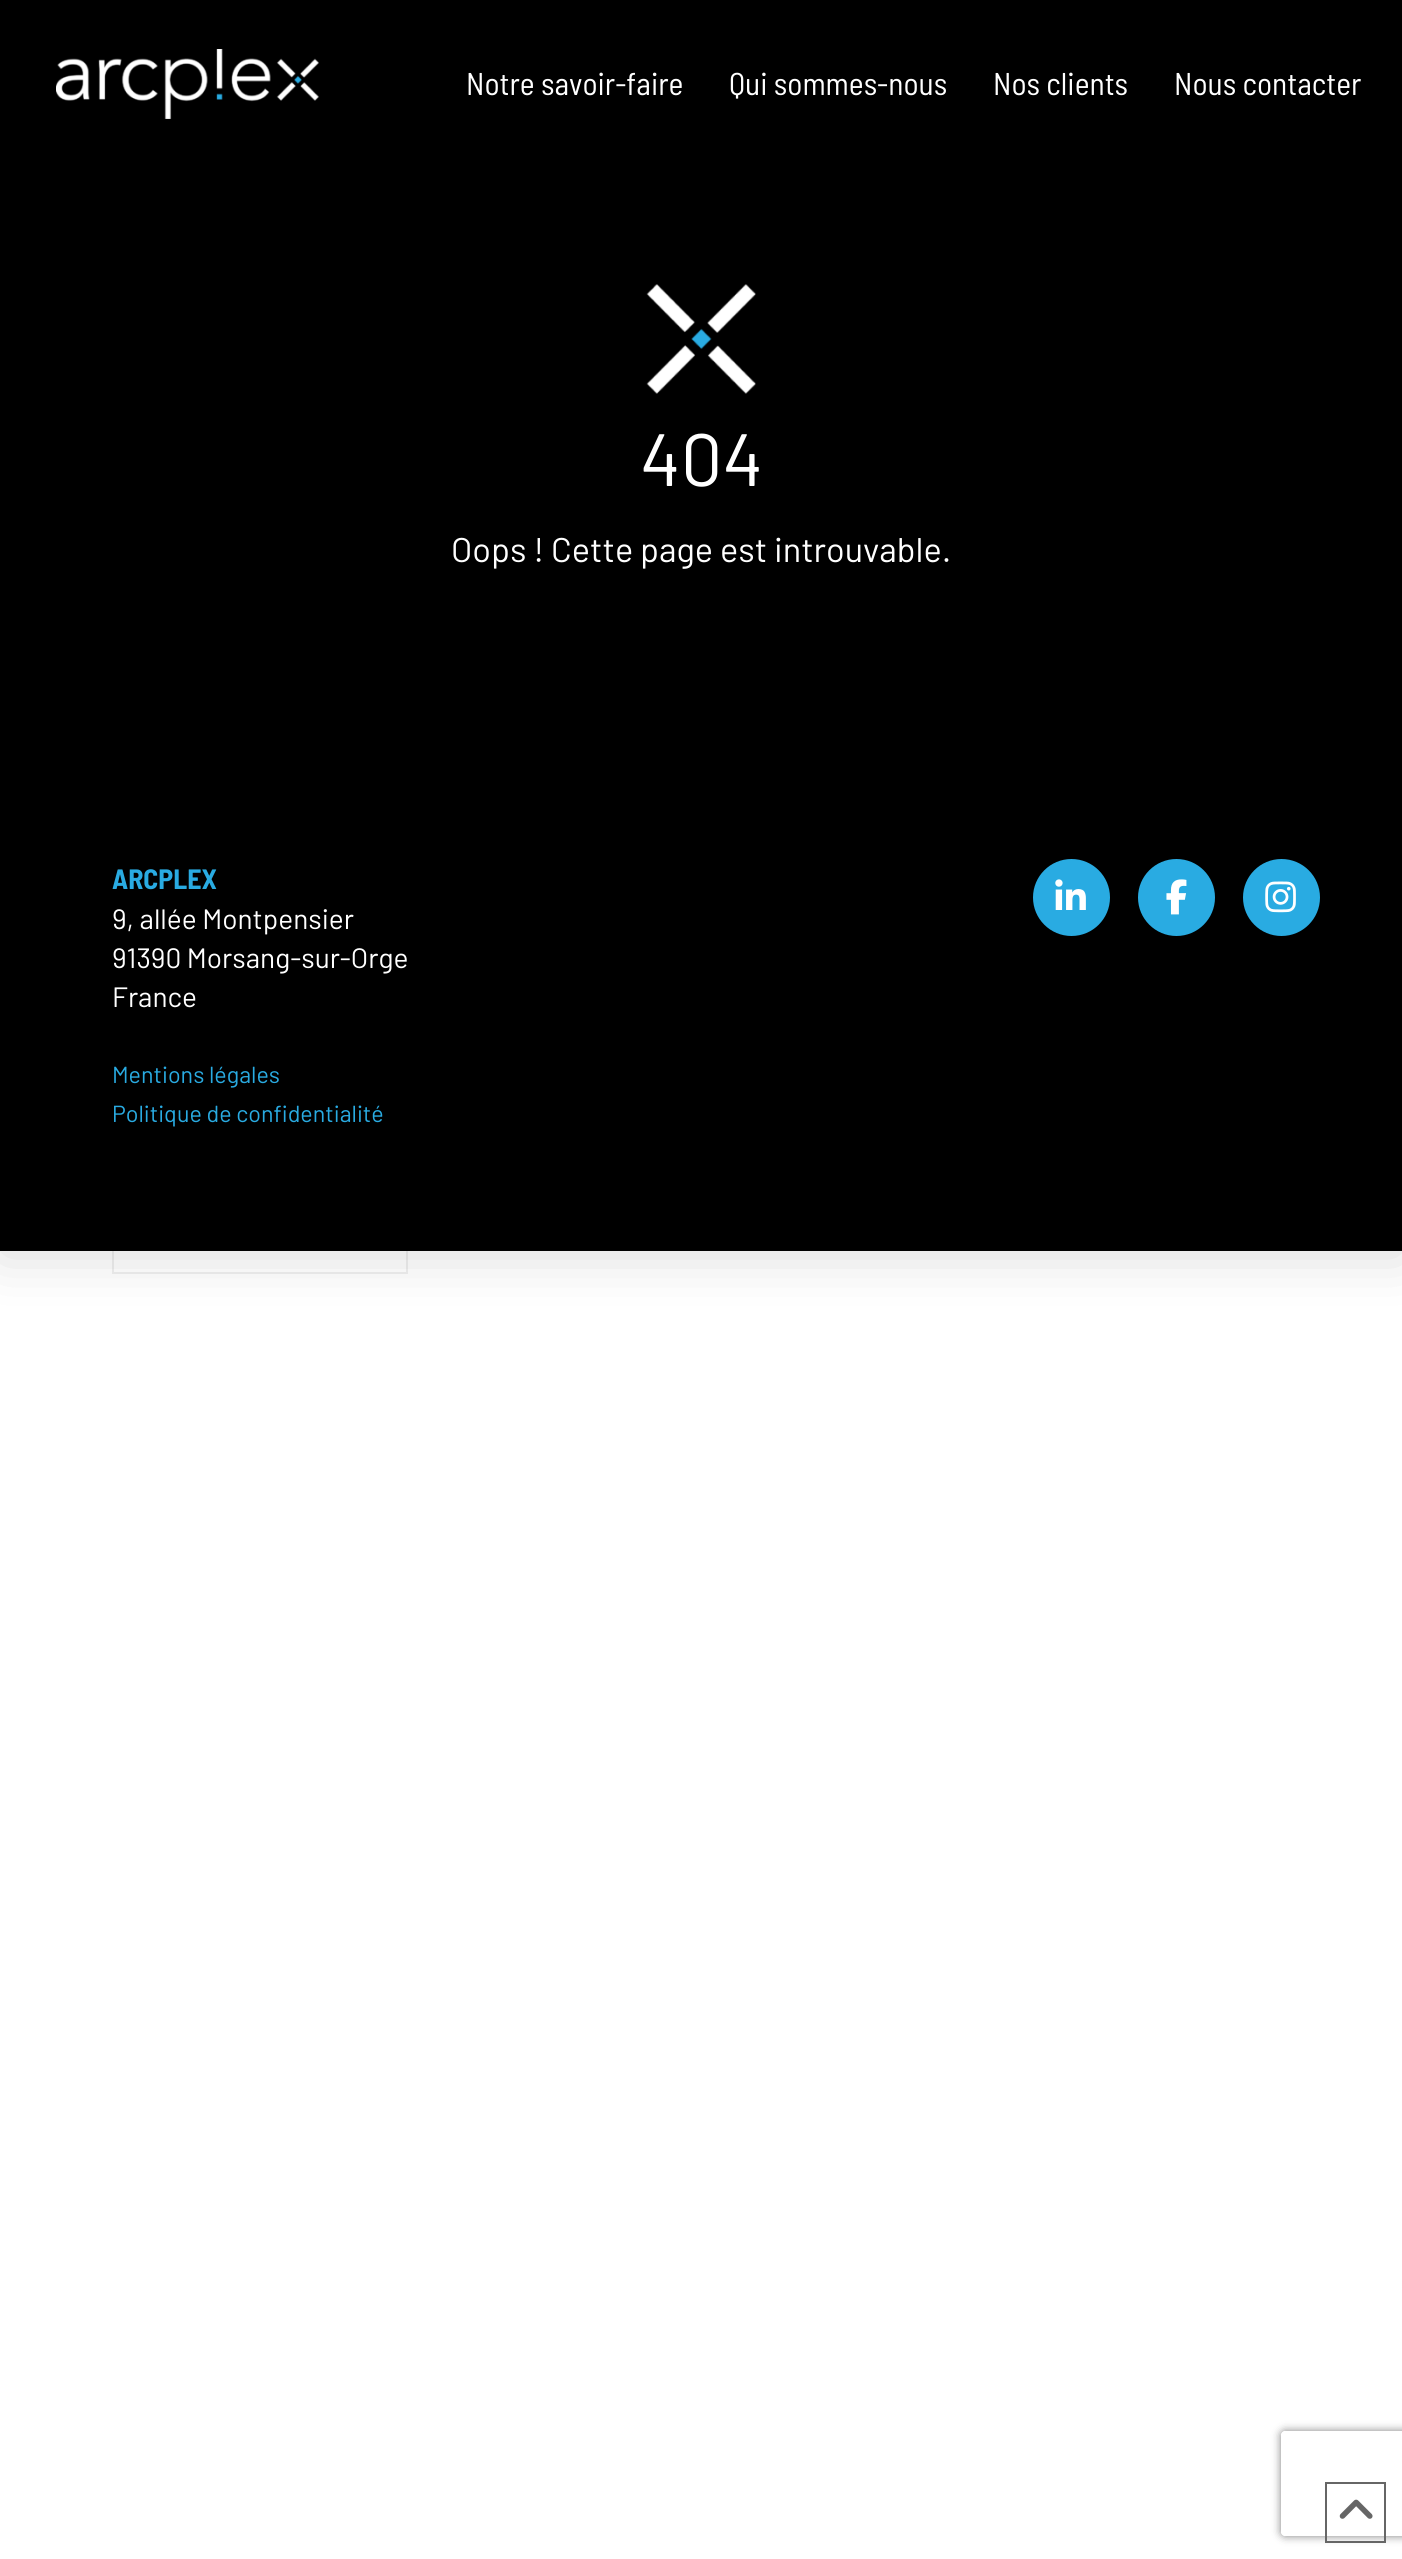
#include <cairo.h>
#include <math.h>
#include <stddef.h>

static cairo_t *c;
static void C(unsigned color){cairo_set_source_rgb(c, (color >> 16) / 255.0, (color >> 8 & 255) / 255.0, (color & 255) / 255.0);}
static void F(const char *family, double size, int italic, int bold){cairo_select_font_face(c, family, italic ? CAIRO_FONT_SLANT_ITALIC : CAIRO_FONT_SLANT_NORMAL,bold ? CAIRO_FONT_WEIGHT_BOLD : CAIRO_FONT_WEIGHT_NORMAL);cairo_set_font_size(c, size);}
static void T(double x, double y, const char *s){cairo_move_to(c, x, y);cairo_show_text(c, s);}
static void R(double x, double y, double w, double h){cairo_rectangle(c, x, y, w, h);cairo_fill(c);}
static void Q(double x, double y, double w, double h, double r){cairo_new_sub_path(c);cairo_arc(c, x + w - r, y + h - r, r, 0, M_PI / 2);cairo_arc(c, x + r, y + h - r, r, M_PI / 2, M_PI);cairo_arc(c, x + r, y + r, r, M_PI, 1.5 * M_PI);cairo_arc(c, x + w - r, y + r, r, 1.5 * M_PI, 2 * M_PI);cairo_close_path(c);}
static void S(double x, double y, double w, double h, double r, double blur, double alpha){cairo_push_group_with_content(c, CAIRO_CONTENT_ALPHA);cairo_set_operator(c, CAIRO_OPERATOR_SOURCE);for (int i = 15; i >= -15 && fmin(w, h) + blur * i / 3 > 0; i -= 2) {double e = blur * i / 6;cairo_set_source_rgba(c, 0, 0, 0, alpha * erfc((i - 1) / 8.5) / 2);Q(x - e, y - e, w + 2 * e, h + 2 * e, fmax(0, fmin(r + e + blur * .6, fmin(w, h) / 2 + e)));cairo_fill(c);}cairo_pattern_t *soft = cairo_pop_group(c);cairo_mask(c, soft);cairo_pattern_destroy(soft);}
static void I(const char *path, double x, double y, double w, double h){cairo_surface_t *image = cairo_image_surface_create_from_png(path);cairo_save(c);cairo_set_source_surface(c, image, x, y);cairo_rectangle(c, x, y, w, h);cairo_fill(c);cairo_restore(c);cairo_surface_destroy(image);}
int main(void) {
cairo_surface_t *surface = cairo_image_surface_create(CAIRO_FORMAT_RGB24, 1402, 2559);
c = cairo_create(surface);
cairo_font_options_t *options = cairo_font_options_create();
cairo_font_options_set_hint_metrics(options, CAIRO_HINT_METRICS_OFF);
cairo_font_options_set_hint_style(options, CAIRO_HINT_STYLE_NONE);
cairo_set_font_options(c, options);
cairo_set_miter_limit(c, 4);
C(0xffffff);
cairo_paint(c);
C(0x000000);
R(0,0,1402,691);
I("1.png",56,49,263,70);
F("Barlow Semi Condensed",31.5,0,0);
C(0xffffff);
T(466,95,"Notre savoir-faire");
T(729,95,"Qui sommes-nous");
T(993,95,"Nos clients");
T(1174,95,"Nous contacter");
I("2.png",646,284,110,110);
F("Barlow",74,0,0);
T(640,486,"404");
F("Barlow",34.25,0,0);
T(451,562,"Oops ! Cette page est introuvable.");
C(0x000000);
S(0,695,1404,560,0,28,.15);
C(0x000000);
R(0,691,1402,560);
F("Barlow Semi Condensed",28,0,1);
C(0x29abe2);
T(112,889,"ARCPLEX");
F("Barlow",28,0,0);
C(0xffffff);
T(112,929,"9, allée Montpensier");
T(112,968,"91390 Morsang-sur-Orge");
T(112,1007,"France");
F("Barlow",23.25,0,0);
C(0x29abe2);
T(112,1083,"Mentions légales");
T(112,1122,"Politique de confidentialité");
cairo_rectangle(c,113,1188,294,85);
cairo_set_source_rgba(c,0,0,0,0.07);
cairo_stroke(c);
C(0x29abe2);
cairo_arc(c,1071.5,897.5,38.5,0,2 * M_PI);
cairo_fill(c);
I("3.png",1055,879,31,31);
cairo_arc(c,1176.5,897.5,38.5,0,2 * M_PI);
cairo_fill(c);
I("4.png",1166,879,21,36);
cairo_arc(c,1281.5,897.5,38.5,0,2 * M_PI);
cairo_fill(c);
I("5.png",1265,881,31,32);
cairo_save(c);
cairo_set_fill_rule(c,CAIRO_FILL_RULE_EVEN_ODD);
cairo_new_path(c);
cairo_move_to(c,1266,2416);
cairo_line_to(c,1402,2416);
cairo_line_to(c,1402,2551);
cairo_line_to(c,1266,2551);
cairo_close_path(c);
cairo_move_to(c,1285,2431);
cairo_line_to(c,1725,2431);
cairo_curve_to(c,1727,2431,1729,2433,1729,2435);
cairo_line_to(c,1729,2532);
cairo_curve_to(c,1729,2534,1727,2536,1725,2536);
cairo_line_to(c,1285,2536);
cairo_curve_to(c,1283,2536,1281,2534,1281,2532);
cairo_line_to(c,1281,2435);
cairo_curve_to(c,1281,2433,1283,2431,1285,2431);
cairo_close_path(c);
cairo_clip(c);
C(0x808080);
S(1281,2431,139,105,4,4.5,1);
cairo_restore(c);
cairo_rectangle(c,1326,2483,59,59);
C(0x666666);
cairo_stroke(c);
I("6.png",1339,2499,34,20);
cairo_surface_write_to_png(surface, "o.png");
cairo_font_options_destroy(options);
cairo_destroy(c);
cairo_surface_destroy(surface);
return 0;
}
